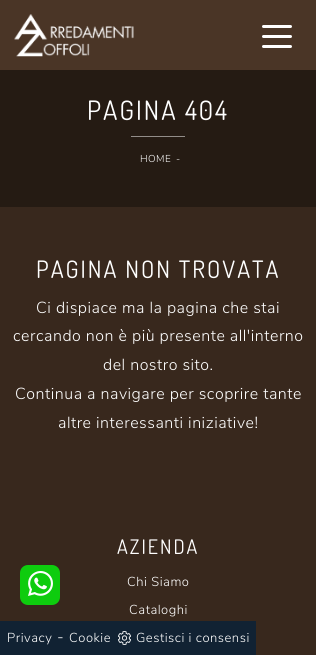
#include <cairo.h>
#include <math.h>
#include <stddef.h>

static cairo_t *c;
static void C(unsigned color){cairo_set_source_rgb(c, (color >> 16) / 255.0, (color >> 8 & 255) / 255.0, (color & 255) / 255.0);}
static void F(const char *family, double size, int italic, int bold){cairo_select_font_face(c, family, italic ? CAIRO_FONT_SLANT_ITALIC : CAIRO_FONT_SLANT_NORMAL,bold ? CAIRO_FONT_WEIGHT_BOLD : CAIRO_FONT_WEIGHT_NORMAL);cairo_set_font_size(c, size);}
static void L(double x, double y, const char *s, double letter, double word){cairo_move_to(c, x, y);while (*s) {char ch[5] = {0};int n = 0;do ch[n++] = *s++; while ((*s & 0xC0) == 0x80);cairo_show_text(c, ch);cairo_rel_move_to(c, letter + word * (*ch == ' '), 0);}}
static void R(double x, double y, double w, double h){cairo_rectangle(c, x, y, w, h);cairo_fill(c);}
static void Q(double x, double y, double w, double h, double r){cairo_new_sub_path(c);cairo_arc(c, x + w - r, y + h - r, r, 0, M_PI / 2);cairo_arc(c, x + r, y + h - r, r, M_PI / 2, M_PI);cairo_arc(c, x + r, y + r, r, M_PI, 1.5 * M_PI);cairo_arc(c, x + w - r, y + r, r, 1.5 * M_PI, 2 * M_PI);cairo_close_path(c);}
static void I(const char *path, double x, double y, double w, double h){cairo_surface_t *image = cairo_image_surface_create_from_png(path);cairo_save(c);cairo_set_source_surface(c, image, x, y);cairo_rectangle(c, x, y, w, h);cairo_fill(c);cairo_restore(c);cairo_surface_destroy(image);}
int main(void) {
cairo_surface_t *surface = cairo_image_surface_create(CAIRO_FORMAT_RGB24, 316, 655);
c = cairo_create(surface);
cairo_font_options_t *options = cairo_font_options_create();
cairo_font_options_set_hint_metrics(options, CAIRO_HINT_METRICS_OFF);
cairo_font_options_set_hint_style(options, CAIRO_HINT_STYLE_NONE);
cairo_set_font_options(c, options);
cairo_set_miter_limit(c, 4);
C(0x4a3526);
cairo_paint(c);
I("1.png",14,14,120,43);
C(0xffffff);
Q(262,25,30,3,1.5);
cairo_fill(c);
Q(262,35,30,3,1.5);
cairo_fill(c);
Q(262,45,30,3,1.5);
cairo_fill(c);
C(0x251b13);
R(0,70,316,137);
F("Dosis",26.75,0,0);
C(0xffffff);
L(87,120,"PAGINA 404",2,0);
C(0x928d89);
R(131,136,54,1);
F("Nunito Sans Light",10,0,0);
C(0xffffff);
L(140,162,"HOME",.5,0);
L(176,162,"-",.5,0);
C(0x38281d);
R(0,207,316,448);
F("Dosis",24,0,0);
C(0xffffff);
L(36,278,"PAGINA NON TROVATA",2,0);
F("Nunito Sans Light",16,0,0);
L(36,313,"Ci dispiace ma la pagina che stai",.5,0);
L(13,341,"cercando non è più presente all'interno",.5,0);
L(103,370,"del nostro sito.",.5,0);
L(15,399,"Continua a navigare per scoprire tante",.5,0);
L(58,428,"altre interessanti iniziative!",.5,0);
C(0x0ecc0e);
Q(20,565,40,40,8);
cairo_fill(c);
I("2.png",28,571,25,25);
F("Dosis",20,0,0);
C(0xffffff);
L(117,554,"AZIENDA",2,0);
F("Nunito Sans Light",13,0,0);
L(127,586,"Chi Siamo",.5,0);
L(129,614,"Cataloghi",.5,0);
C(0x112233);
R(0,621,256,34);
C(0xffffff);
L(7,642,"Privacy",.5,0);
F("Nunito Sans Light",16,0,0);
L(57,642,"-",.5,0);
F("Nunito Sans Light",13,0,0);
L(69,642,"Cookie",.5,0);
I("3.png",118,631,13,14);
L(136,642,"Gestisci i consensi",.5,0);
cairo_surface_write_to_png(surface, "o.png");
cairo_font_options_destroy(options);
cairo_destroy(c);
cairo_surface_destroy(surface);
return 0;
}
